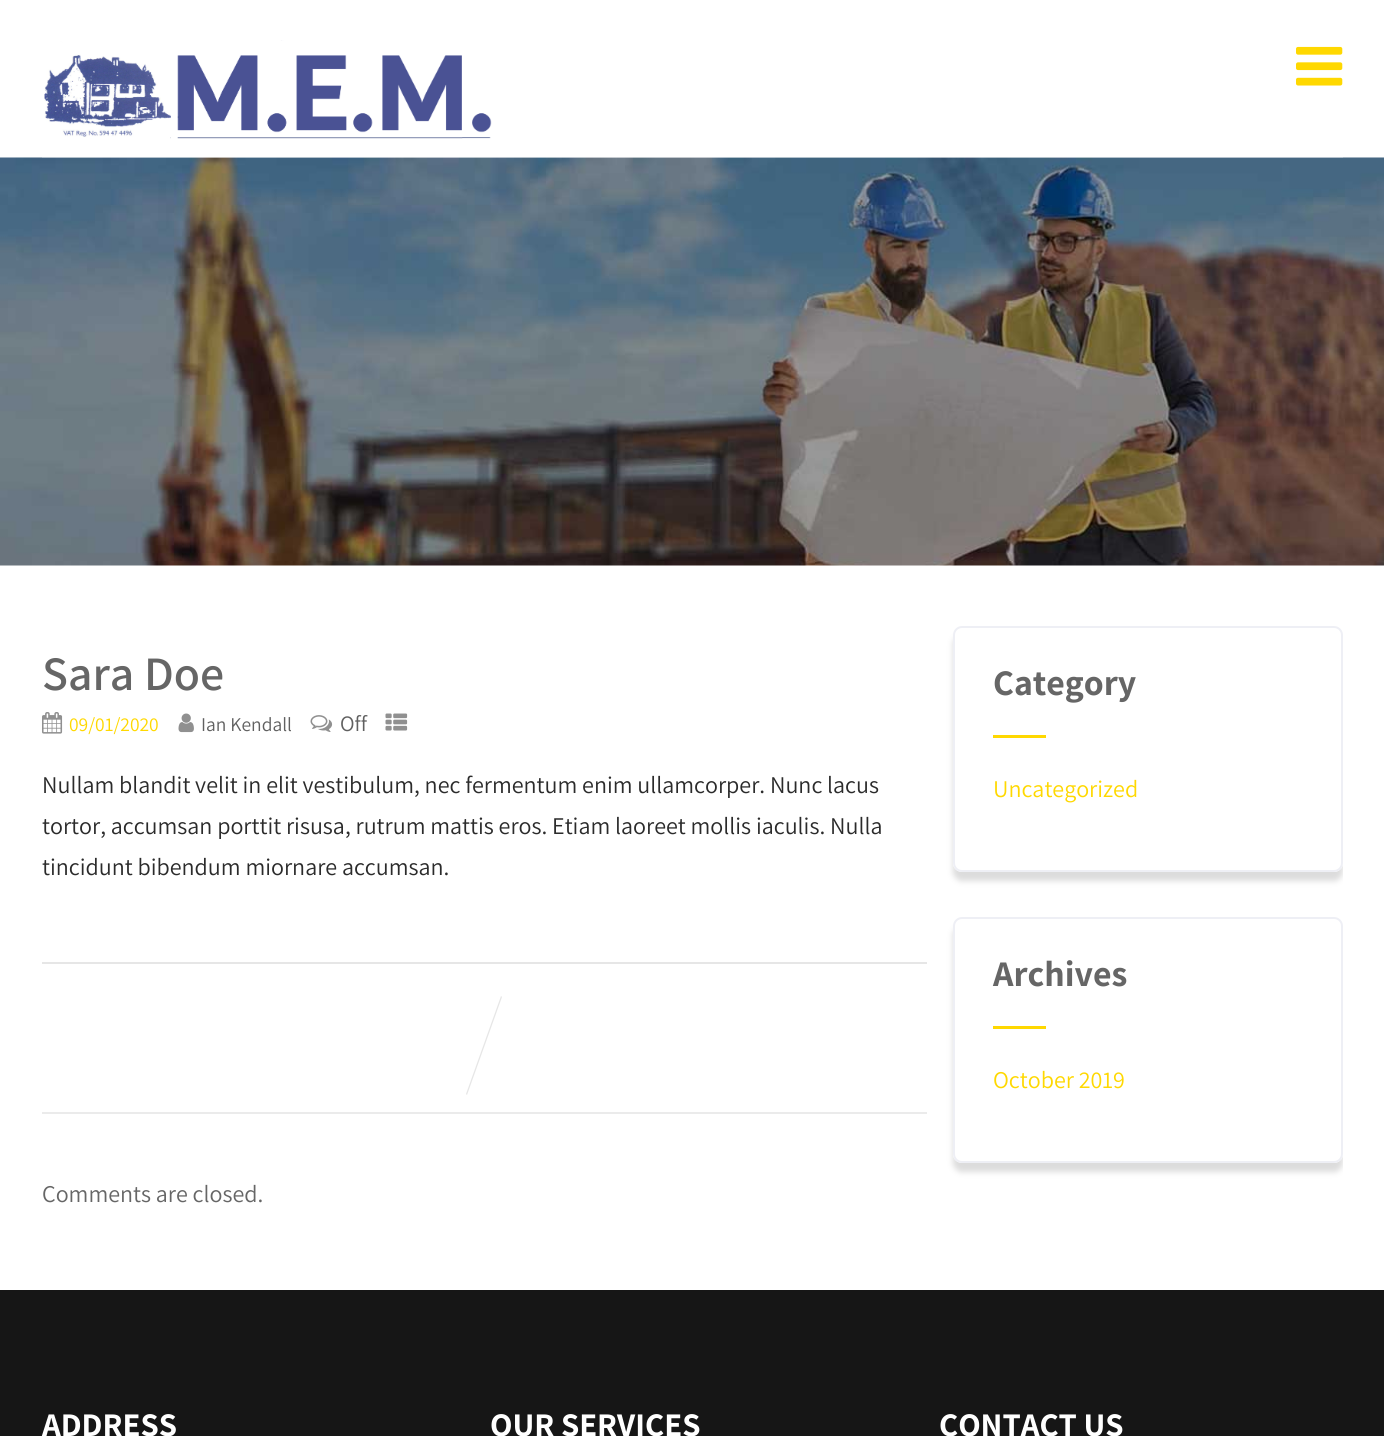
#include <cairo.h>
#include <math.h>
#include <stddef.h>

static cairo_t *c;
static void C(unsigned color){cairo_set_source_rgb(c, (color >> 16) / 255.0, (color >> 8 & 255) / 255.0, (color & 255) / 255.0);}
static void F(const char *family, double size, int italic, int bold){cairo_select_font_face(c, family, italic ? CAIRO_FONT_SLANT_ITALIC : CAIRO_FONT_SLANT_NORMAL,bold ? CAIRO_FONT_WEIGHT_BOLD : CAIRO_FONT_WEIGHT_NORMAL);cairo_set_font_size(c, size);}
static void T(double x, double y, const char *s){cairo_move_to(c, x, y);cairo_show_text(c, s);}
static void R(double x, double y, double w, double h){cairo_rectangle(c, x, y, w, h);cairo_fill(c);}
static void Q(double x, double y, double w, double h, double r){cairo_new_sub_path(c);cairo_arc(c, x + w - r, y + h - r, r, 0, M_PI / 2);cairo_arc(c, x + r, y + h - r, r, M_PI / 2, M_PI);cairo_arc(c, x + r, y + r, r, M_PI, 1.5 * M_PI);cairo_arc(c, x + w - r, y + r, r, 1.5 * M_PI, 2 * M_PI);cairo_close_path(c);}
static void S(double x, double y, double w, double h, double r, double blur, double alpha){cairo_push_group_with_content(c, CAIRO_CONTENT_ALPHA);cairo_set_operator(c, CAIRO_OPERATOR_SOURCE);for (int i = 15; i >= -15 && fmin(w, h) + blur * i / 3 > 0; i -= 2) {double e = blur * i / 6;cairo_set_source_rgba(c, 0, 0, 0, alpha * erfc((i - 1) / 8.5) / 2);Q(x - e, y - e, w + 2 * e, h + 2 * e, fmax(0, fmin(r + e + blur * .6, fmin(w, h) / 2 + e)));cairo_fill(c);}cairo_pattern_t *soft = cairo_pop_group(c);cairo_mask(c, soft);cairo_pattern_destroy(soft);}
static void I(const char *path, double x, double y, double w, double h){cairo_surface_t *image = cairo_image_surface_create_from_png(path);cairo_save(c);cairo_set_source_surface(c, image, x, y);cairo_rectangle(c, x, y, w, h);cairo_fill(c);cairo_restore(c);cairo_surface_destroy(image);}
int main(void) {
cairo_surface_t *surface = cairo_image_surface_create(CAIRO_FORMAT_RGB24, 1384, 1436);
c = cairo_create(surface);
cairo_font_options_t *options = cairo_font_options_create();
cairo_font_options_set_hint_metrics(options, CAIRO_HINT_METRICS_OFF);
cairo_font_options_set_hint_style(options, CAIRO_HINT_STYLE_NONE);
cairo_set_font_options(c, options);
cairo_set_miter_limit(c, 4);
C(0xffffff);
cairo_paint(c);
I("3.png",0,157,1384,409);
cairo_set_source_rgba(c,1,1,1,0.2);
R(42,157,1301,1);
I("1.png",44,40,448,99);
I("2.png",1296,46,47,40);
F("Assistant SemiBold",48,0,0);
C(0x666666);
T(42,690,"Sara Doe");
I("4.png",42,712,21,22);
F("Assistant",19.5,0,0);
C(0xffd800);
T(69,731,"09/01/2020");
I("5.png",178,713,16,20);
C(0x606060);
T(201,731,"Ian Kendall");
I("6.png",310,715,23,17);
F("Assistant",22,0,0);
T(340,731,"Off");
I("7.png",385,713,23,18);
F("Assistant",24,0,0);
C(0x2b2b2b);
T(42,793,"Nullam blandit velit in elit vestibulum, nec fermentum enim ullamcorper. Nunc lacus");
T(42,834,"tortor, accumsan porttit risusa, rutrum mattis eros. Etiam laoreet mollis iaculis. Nulla");
T(42,875,"tincidunt bibendum miornare accumsan.");
C(0xe6e6e6);
R(42,962,885,2);
C(0xebebeb);
R(42,1112,885,2);
C(0xe6e6e6);
cairo_new_path(c);
cairo_move_to(c,501,996);
cairo_line_to(c,502,997);
cairo_line_to(c,467,1095);
cairo_line_to(c,466,1094);
cairo_close_path(c);
cairo_fill(c);
C(0x666666);
T(42,1202,"Comments are closed.");
cairo_save(c);
cairo_rectangle(c,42,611,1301,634);
cairo_clip(c);
cairo_set_fill_rule(c,CAIRO_FILL_RULE_EVEN_ODD);
cairo_new_path(c);
cairo_move_to(c,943,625);
cairo_line_to(c,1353,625);
cairo_line_to(c,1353,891);
cairo_line_to(c,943,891);
cairo_close_path(c);
cairo_move_to(c,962,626);
cairo_line_to(c,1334,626);
cairo_curve_to(c,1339,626,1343,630,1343,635);
cairo_line_to(c,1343,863);
cairo_curve_to(c,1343,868,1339,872,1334,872);
cairo_line_to(c,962,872);
cairo_curve_to(c,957,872,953,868,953,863);
cairo_line_to(c,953,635);
cairo_curve_to(c,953,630,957,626,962,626);
cairo_close_path(c);
cairo_clip(c);
C(0xdcdcdc);
S(953,635,390,246,9,3,1);
cairo_restore(c);
Q(954,627,388,244,8);
C(0xeeeff5);
cairo_stroke(c);
F("Assistant",36,0,1);
C(0x666666);
T(993,695,"Category");
C(0xffd800);
R(993,735,53,3);
F("Assistant",24,0,0);
T(993,797,"Uncategorized");
cairo_save(c);
cairo_rectangle(c,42,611,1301,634);
cairo_clip(c);
cairo_set_fill_rule(c,CAIRO_FILL_RULE_EVEN_ODD);
cairo_new_path(c);
cairo_move_to(c,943,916);
cairo_line_to(c,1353,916);
cairo_line_to(c,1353,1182);
cairo_line_to(c,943,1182);
cairo_close_path(c);
cairo_move_to(c,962,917);
cairo_line_to(c,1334,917);
cairo_curve_to(c,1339,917,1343,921,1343,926);
cairo_line_to(c,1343,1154);
cairo_curve_to(c,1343,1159,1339,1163,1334,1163);
cairo_line_to(c,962,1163);
cairo_curve_to(c,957,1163,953,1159,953,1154);
cairo_line_to(c,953,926);
cairo_curve_to(c,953,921,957,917,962,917);
cairo_close_path(c);
cairo_clip(c);
C(0xdcdcdc);
S(953,926,390,246,9,3,1);
cairo_restore(c);
Q(954,918,388,244,8);
C(0xeeeff5);
cairo_stroke(c);
F("Assistant",36,0,1);
C(0x666666);
T(993,986,"Archives");
C(0xffd800);
R(993,1026,53,3);
F("Assistant",24,0,0);
T(993,1088,"October 2019");
C(0x161616);
R(0,1290,1384,146);
F("Assistant",33,0,1);
C(0xffffff);
T(42,1436,"ADDRESS");
T(490,1436,"OUR SERVICES");
T(939,1436,"CONTACT US");
cairo_surface_write_to_png(surface, "o.png");
cairo_font_options_destroy(options);
cairo_destroy(c);
cairo_surface_destroy(surface);
return 0;
}
